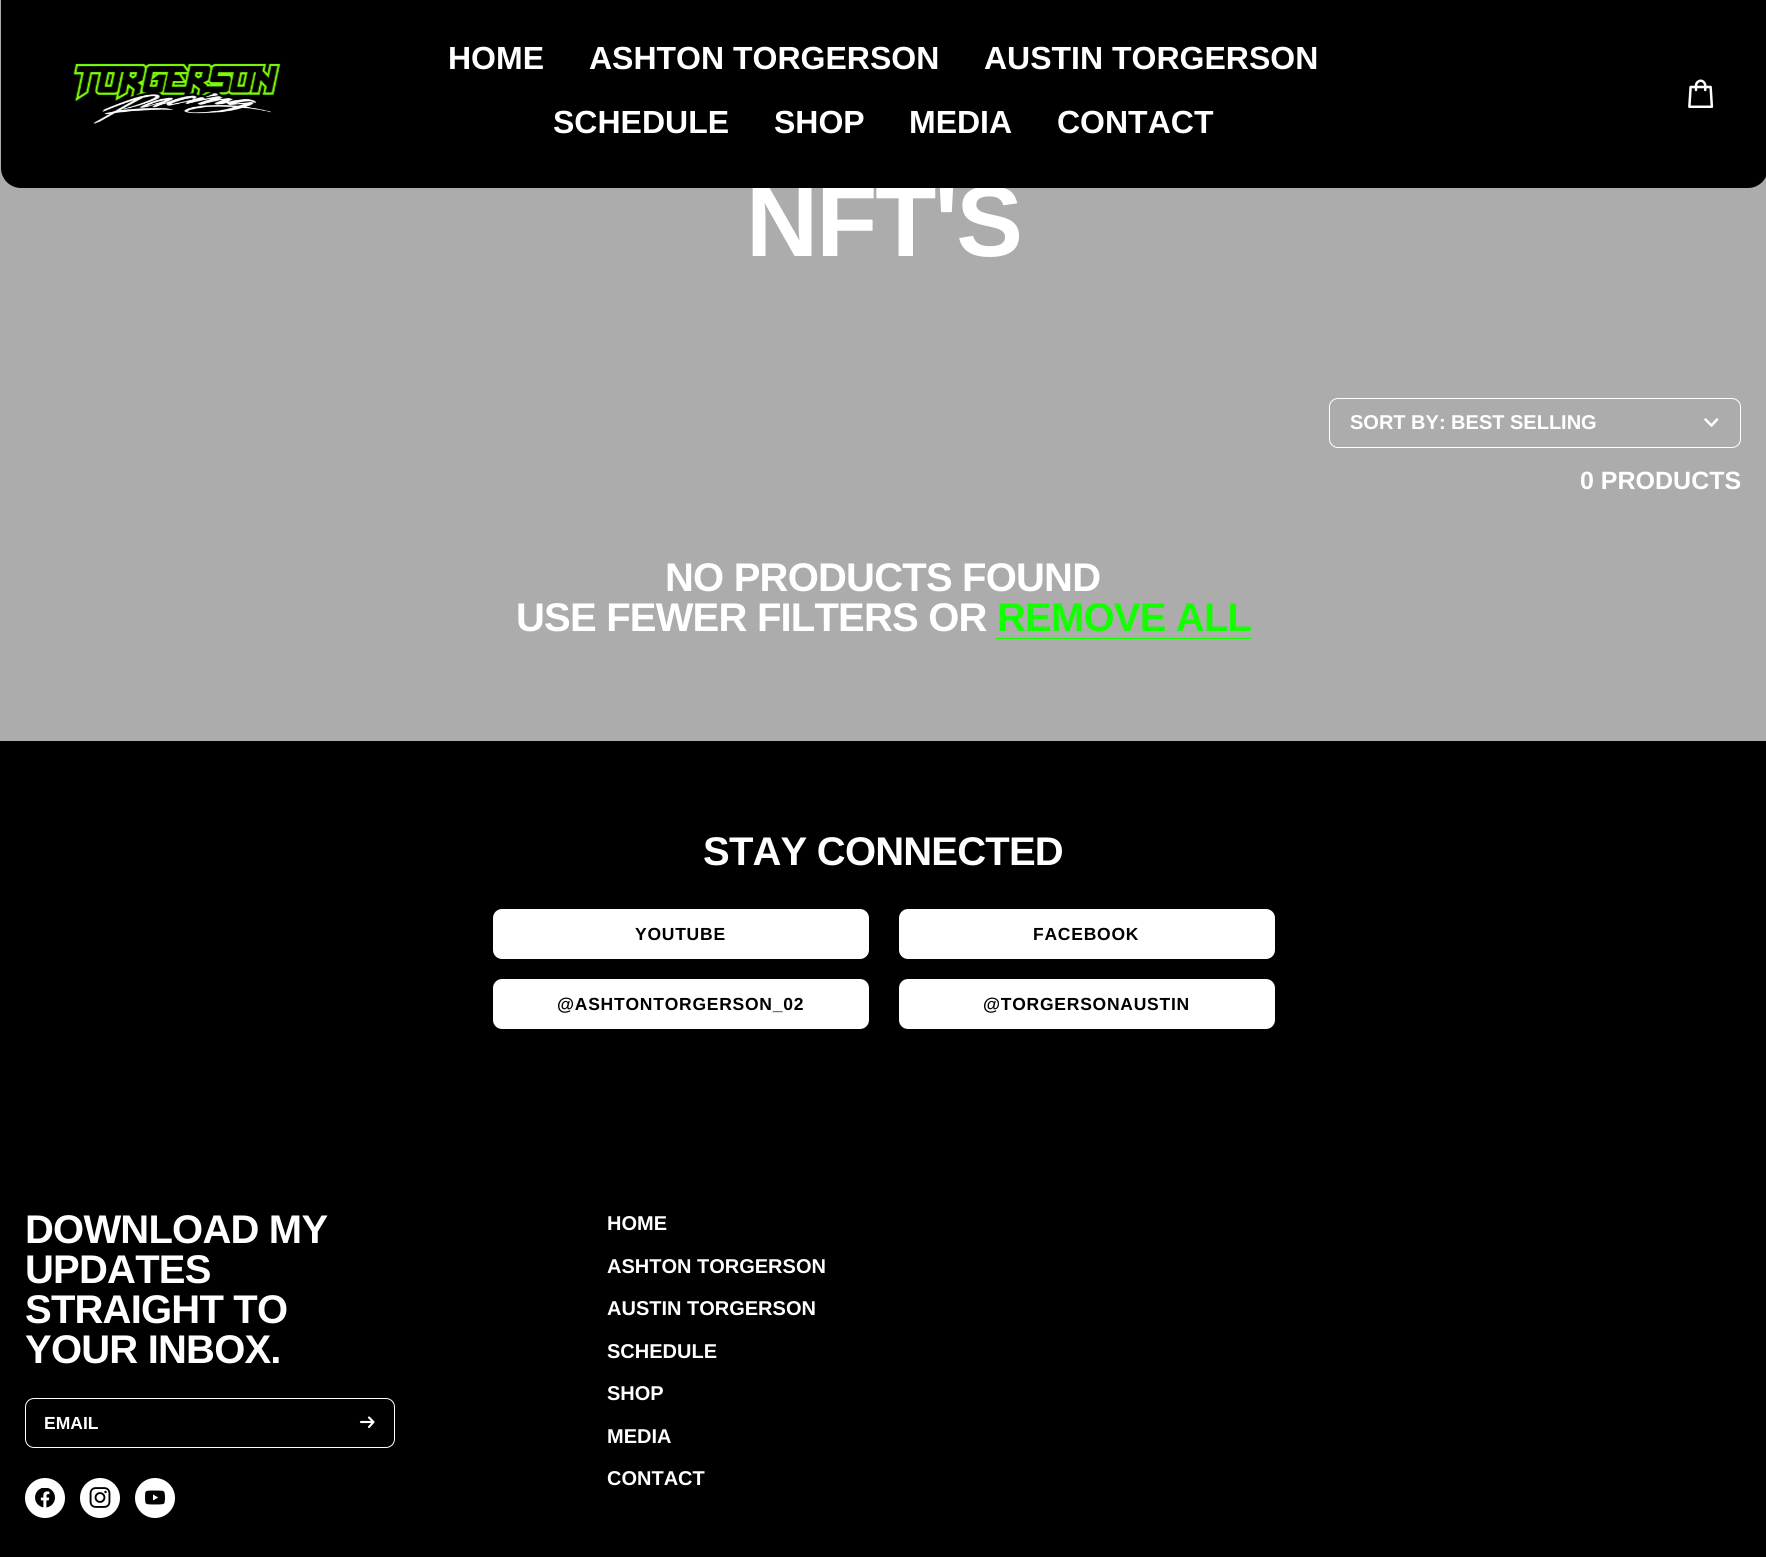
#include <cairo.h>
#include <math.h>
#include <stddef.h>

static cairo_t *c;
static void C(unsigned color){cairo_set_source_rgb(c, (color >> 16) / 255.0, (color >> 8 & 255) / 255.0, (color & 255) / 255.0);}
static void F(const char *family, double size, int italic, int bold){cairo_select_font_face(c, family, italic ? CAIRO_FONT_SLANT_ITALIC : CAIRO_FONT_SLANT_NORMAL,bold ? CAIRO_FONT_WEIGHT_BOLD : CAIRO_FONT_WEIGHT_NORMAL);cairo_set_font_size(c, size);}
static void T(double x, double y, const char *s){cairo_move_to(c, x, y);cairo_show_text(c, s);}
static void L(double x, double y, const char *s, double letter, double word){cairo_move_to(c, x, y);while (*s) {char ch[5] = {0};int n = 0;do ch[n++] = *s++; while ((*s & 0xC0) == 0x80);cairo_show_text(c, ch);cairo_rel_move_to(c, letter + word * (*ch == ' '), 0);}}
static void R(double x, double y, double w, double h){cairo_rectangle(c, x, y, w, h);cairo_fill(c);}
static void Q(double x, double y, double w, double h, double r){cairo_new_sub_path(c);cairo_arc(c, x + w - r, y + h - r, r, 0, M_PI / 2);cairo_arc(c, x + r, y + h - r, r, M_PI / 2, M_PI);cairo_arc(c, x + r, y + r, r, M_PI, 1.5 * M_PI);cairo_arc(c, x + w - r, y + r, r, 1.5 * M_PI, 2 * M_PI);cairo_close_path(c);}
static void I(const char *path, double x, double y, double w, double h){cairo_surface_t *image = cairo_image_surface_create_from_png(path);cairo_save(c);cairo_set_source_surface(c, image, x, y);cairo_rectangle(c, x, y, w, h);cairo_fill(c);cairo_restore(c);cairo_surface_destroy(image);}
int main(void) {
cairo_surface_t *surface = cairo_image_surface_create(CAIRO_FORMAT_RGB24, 1766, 1557);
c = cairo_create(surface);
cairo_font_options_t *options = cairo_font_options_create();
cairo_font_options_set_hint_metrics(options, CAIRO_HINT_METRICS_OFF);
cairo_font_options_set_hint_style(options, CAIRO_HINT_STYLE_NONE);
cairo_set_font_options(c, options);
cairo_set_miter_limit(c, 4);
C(0xacacac);
cairo_paint(c);
F("Liberation Sans",100,0,1);
C(0xffffff);
L(746,256,"NFT'S",-2,0);
C(0x000000);
cairo_new_path(c);
cairo_move_to(c,1,0);
cairo_line_to(c,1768,0);
cairo_line_to(c,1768,168);
cairo_curve_to(c,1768,179,1759,188,1748,188);
cairo_line_to(c,21,188);
cairo_curve_to(c,10,188,1,179,1,168);
cairo_close_path(c);
cairo_fill(c);
I("1.png",73,63,208,61);
F("Liberation Sans",32,0,1);
C(0xffffff);
T(448,69,"HOME");
T(589,69,"ASHTON TORGERSON");
T(984,69,"AUSTIN TORGERSON");
T(553,133,"SCHEDULE");
T(774,133,"SHOP");
T(909,133,"MEDIA");
T(1057,133,"CONTACT");
I("2.png",1688,79,26,29);
Q(1329.5,398.5,411,49,8.5);
cairo_set_line_width(c,1);
cairo_stroke(c);
F("Liberation Sans",20,0,1);
T(1350,429,"SORT BY: BEST SELLING");
cairo_new_path(c);
cairo_move_to(c,1717,419.5);
cairo_line_to(c,1711.5,425.5);
cairo_line_to(c,1705.5,419.5);
cairo_set_line_width(c,2.5);
cairo_set_line_cap(c,CAIRO_LINE_CAP_ROUND);
cairo_set_line_join(c,CAIRO_LINE_JOIN_ROUND);
cairo_stroke(c);
F("Liberation Sans",25,0,1);
T(1580,489,"0 PRODUCTS");
F("Liberation Sans",40,0,1);
L(665,591,"NO PRODUCTS FOUND",-.8,0);
L(516,631,"USE FEWER FILTERS OR",-.8,0);
C(0x13ff00);
R(996,638,255,1);
L(997,631,"REMOVE ALL",-.8,0);
C(0x000000);
R(0,741,1766,816);
C(0xffffff);
L(703,865,"STAY CONNECTED",-.8,0);
Q(493,909,376,50,9);
cairo_fill(c);
F("Liberation Sans",17.5,0,1);
C(0x000000);
L(635,940,"YOUTUBE",.75,0);
C(0xffffff);
Q(899,909,376,50,9);
cairo_fill(c);
C(0x000000);
L(1033,940,"FACEBOOK",.75,0);
C(0xffffff);
Q(493,979,376,50,9);
cairo_fill(c);
C(0x000000);
L(557,1010,"@ASHTONTORGERSON_02",.75,0);
C(0xffffff);
Q(899,979,376,50,9);
cairo_fill(c);
C(0x000000);
L(983,1010,"@TORGERSONAUSTIN",.75,0);
F("Liberation Sans",40,0,1);
C(0xffffff);
L(25,1243,"DOWNLOAD MY",-.8,0);
L(25,1283,"UPDATES",-.8,0);
L(25,1323,"STRAIGHT TO",-.8,0);
L(25,1363,"YOUR INBOX.",-.8,0);
Q(25.5,1398.5,369,49,8.5);
cairo_set_line_width(c,1);
cairo_set_line_cap(c,CAIRO_LINE_CAP_BUTT);
cairo_set_line_join(c,CAIRO_LINE_JOIN_MITER);
cairo_stroke(c);
F("Liberation Sans",17.5,0,1);
T(44,1429,"EMAIL");
cairo_new_path(c);
cairo_move_to(c,373.5,1422);
cairo_line_to(c,369,1417.5);
cairo_move_to(c,373.5,1422);
cairo_line_to(c,369,1427);
cairo_move_to(c,373.5,1422);
cairo_line_to(c,361,1422);
cairo_set_line_width(c,2.1);
cairo_set_line_cap(c,CAIRO_LINE_CAP_ROUND);
cairo_set_line_join(c,CAIRO_LINE_JOIN_ROUND);
cairo_stroke(c);
cairo_arc(c,45,1498,20,0,2 * M_PI);
cairo_fill(c);
I("3.png",35,1488,20,20);
cairo_arc(c,100,1498,20,0,2 * M_PI);
cairo_fill(c);
I("4.png",89,1487,22,21);
cairo_arc(c,155,1498,20,0,2 * M_PI);
cairo_fill(c);
I("5.png",145,1490,20,15);
F("Liberation Sans",20,0,1);
T(607,1230,"HOME");
T(607,1273,"ASHTON TORGERSON");
T(607,1315,"AUSTIN TORGERSON");
T(607,1358,"SCHEDULE");
T(607,1400,"SHOP");
T(607,1443,"MEDIA");
T(607,1485,"CONTACT");
cairo_surface_write_to_png(surface, "o.png");
cairo_font_options_destroy(options);
cairo_destroy(c);
cairo_surface_destroy(surface);
return 0;
}
